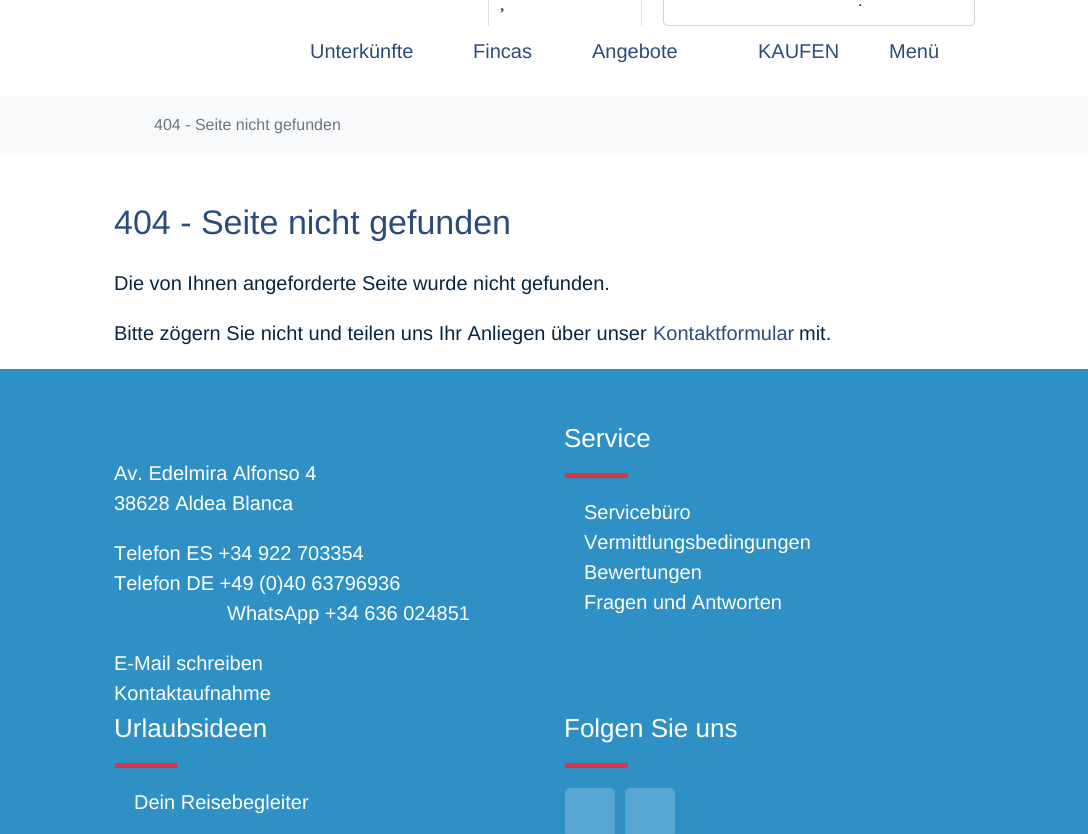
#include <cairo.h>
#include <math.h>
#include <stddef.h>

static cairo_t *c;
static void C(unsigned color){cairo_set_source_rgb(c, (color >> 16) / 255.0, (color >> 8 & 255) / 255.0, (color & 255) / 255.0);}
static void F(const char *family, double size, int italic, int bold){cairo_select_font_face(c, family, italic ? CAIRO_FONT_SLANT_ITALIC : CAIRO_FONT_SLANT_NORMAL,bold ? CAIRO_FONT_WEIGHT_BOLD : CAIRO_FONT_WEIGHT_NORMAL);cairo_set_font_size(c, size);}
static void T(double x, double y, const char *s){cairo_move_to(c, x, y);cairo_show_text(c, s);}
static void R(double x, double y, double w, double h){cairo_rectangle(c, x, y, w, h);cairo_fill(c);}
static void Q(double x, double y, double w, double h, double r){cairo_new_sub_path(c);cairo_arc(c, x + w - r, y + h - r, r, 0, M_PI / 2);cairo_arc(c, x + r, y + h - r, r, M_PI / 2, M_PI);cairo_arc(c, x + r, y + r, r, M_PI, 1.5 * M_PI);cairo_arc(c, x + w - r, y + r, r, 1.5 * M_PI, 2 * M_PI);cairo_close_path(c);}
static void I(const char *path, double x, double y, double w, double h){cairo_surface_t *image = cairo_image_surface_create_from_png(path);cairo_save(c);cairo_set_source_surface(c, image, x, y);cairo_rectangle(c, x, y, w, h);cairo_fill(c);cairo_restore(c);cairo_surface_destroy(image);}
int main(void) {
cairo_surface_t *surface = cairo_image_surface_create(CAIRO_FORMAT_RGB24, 1088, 834);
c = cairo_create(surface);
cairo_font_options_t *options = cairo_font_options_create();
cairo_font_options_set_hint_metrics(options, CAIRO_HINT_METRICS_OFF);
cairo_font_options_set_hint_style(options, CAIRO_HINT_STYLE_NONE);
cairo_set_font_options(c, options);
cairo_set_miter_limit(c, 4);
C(0xffffff);
cairo_paint(c);
C(0xdee2e6);
R(488,0,1,26);
I("1.png",500,8,4,5);
R(641,0,1,26);
Q(663.5,-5.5,311,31,4.5);
C(0xced4da);
cairo_set_line_width(c,1);
cairo_stroke(c);
F("Liberation Sans",16,0,0);
C(0x07253f);
T(858,6,".");
F("Liberation Sans",20,0,0);
C(0x2a4c7b);
T(310,58,"Unterkünfte");
T(473,58,"Fincas");
T(592,58,"Angebote");
T(758,58,"KAUFEN");
T(889,58,"Menü");
C(0xf8f9fa);
R(0,96,1088,57);
F("Liberation Sans",16,0,0);
C(0x6c757d);
T(154,130,"404 - Seite nicht gefunden");
F("Liberation Sans",34,0,0);
C(0x2a4c7b);
T(114,234,"404 - Seite nicht gefunden");
F("Liberation Sans",20,0,0);
C(0x07253f);
T(114,290,"Die von Ihnen angeforderte Seite wurde nicht gefunden.");
T(114,340,"Bitte zögern Sie nicht und teilen uns Ihr Anliegen über unser");
C(0x2a4c7b);
T(653,340,"Kontaktformular");
C(0x07253f);
T(799,340,"mit.");
C(0x2e90c5);
R(0,369,1088,465);
C(0xffffff);
T(114,480,"Av. Edelmira Alfonso 4");
T(114,510,"38628 Aldea Blanca");
T(114,560,"Telefon ES +34 922 703354");
T(114,590,"Telefon DE +49 (0)40 63796936");
T(227,620,"WhatsApp +34 636 024851");
T(114,670,"E-Mail schreiben");
T(114,700,"Kontaktaufnahme");
F("Liberation Sans",26,0,0);
T(564,447,"Service");
C(0xdc3545);
R(565,473,63,5);
F("Liberation Sans",20,0,0);
C(0xffffff);
T(584,519,"Servicebüro");
T(584,549,"Vermittlungsbedingungen");
T(584,579,"Bewertungen");
T(584,609,"Fragen und Antworten");
F("Liberation Sans",26,0,0);
T(114,737,"Urlaubsideen");
C(0xdc3545);
R(115,763,63,5);
F("Liberation Sans",20,0,0);
C(0xffffff);
T(134,809,"Dein Reisebegleiter");
F("Liberation Sans",26,0,0);
T(564,737,"Folgen Sie uns");
C(0xdc3545);
R(565,763,63,5);
C(0x58a6d1);
Q(565,788,50,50,5);
cairo_fill(c);
Q(625,788,50,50,5);
cairo_fill(c);
cairo_surface_write_to_png(surface, "o.png");
cairo_font_options_destroy(options);
cairo_destroy(c);
cairo_surface_destroy(surface);
return 0;
}
